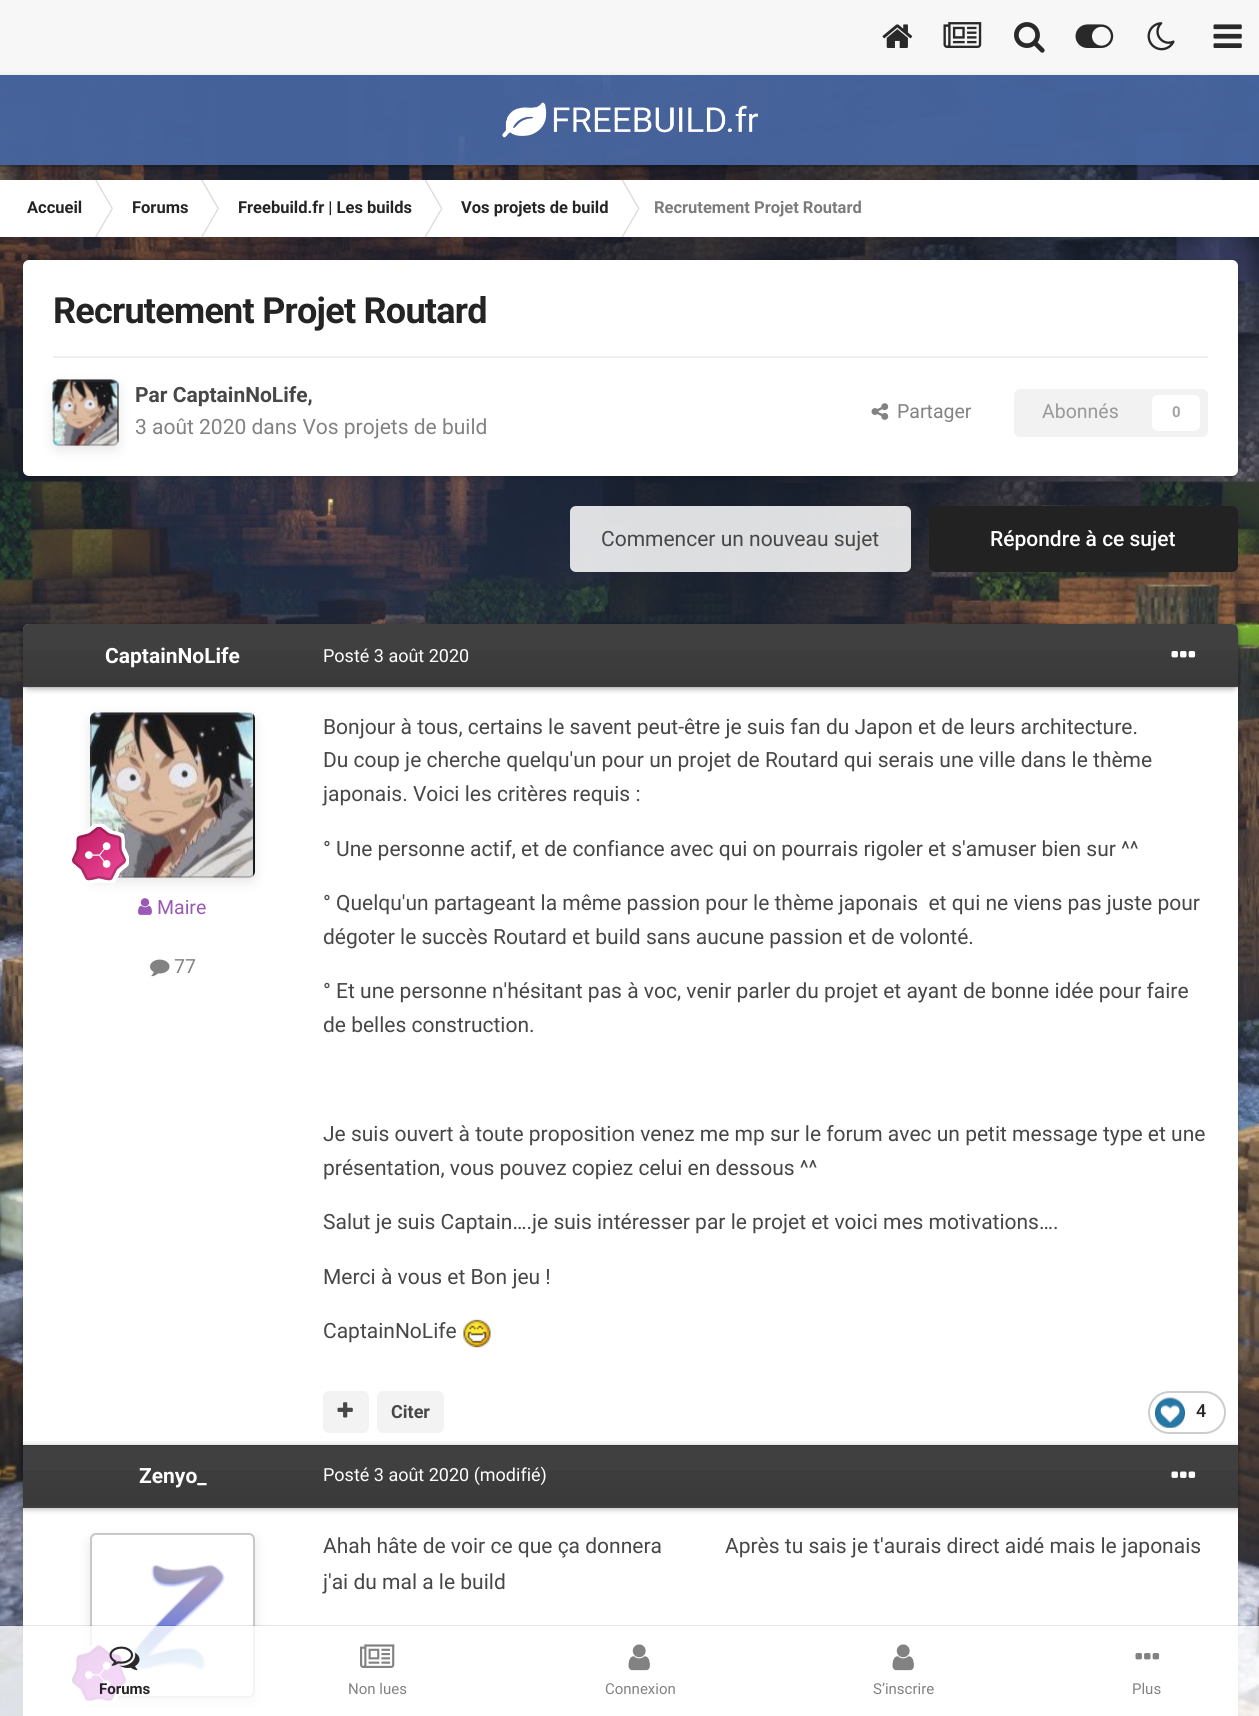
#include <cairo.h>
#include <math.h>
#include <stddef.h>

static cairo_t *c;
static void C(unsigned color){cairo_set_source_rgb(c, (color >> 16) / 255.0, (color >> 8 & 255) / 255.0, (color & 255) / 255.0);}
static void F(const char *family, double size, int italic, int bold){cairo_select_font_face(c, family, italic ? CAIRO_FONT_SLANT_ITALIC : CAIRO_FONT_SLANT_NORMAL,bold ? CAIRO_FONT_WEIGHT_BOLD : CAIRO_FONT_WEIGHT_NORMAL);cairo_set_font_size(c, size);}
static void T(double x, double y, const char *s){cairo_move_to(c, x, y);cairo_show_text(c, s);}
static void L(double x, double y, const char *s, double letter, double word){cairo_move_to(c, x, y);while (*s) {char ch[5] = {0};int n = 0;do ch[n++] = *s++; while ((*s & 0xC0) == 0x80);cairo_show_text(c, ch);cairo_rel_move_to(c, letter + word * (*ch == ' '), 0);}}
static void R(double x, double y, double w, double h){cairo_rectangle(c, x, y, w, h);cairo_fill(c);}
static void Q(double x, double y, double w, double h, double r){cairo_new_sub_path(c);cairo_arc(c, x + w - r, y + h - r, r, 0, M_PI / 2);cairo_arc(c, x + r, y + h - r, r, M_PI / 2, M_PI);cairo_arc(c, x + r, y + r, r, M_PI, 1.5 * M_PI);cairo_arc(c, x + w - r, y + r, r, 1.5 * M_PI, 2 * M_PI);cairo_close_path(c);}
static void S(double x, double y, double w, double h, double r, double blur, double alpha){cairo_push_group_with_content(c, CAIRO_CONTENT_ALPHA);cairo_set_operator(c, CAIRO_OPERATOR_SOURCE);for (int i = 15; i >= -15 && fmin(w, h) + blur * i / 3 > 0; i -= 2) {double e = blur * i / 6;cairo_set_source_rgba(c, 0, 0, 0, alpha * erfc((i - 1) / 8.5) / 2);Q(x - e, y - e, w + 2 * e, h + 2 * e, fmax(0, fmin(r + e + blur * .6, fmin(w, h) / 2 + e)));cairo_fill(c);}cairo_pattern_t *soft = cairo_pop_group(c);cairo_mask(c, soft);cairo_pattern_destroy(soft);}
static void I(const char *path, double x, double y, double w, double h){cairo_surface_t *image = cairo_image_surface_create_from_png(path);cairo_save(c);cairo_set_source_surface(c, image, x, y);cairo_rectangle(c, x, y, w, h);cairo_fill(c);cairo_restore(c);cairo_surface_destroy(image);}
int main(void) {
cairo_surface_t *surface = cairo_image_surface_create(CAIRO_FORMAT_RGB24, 1259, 1716);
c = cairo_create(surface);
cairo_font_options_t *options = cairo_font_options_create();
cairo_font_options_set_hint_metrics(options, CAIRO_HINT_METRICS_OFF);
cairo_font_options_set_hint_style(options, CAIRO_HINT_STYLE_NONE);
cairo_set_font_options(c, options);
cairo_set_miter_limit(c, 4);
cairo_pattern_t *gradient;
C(0xffffff);
cairo_paint(c);
C(0xf7f7f7);
R(0,0,1259,75);
I("1.png",882,24,31,24);
I("2.png",943,22,39,26);
I("3.png",1014,22,31,31);
I("4.png",1075,24,39,24);
I("5.png",1147,22,28,29);
I("6.png",1213,24,29,24);
I("8.png",0,75,1259,1641);
cairo_set_source_rgba(c,0,0,0,0.1);
R(0,165,1259,2);
cairo_save(c);
cairo_set_fill_rule(c,CAIRO_FILL_RULE_EVEN_ODD);
cairo_new_path(c);
cairo_move_to(c,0,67);
cairo_line_to(c,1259,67);
cairo_line_to(c,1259,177);
cairo_line_to(c,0,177);
cairo_close_path(c);
cairo_move_to(c,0,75);
cairo_line_to(c,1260,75);
cairo_line_to(c,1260,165);
cairo_line_to(c,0,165);
cairo_close_path(c);
cairo_clip(c);
C(0x000000);
S(0,77,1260,90,0,3,.15);
cairo_restore(c);
cairo_set_source_rgba(c,0.278,0.396,0.627,0.95);
R(0,75,1259,90);
I("7.png",502,102,256,36);
C(0xffffff);
R(0,180,1259,57);
F("Roboto",16.5,0,1);
C(0x242424);
T(27,213,"Accueil");
C(0xdadada);
cairo_new_path(c);
cairo_move_to(c,95,180);
cairo_line_to(c,96.5,180);
cairo_line_to(c,113,208.5);
cairo_line_to(c,111.5,208.5);
cairo_close_path(c);
cairo_fill(c);
cairo_new_path(c);
cairo_move_to(c,95,237);
cairo_line_to(c,96.5,237);
cairo_line_to(c,113,208.5);
cairo_line_to(c,111.5,208.5);
cairo_close_path(c);
cairo_fill(c);
C(0x242424);
T(132,213,"Forums");
C(0xdadada);
cairo_new_path(c);
cairo_move_to(c,201,180);
cairo_line_to(c,202.5,180);
cairo_line_to(c,219,208.5);
cairo_line_to(c,217.5,208.5);
cairo_close_path(c);
cairo_fill(c);
cairo_new_path(c);
cairo_move_to(c,201,237);
cairo_line_to(c,202.5,237);
cairo_line_to(c,219,208.5);
cairo_line_to(c,217.5,208.5);
cairo_close_path(c);
cairo_fill(c);
C(0x242424);
T(238,213,"Freebuild.fr | Les builds");
C(0xdadada);
cairo_new_path(c);
cairo_move_to(c,424.5,180);
cairo_line_to(c,426,180);
cairo_line_to(c,442.5,208.5);
cairo_line_to(c,441,208.5);
cairo_close_path(c);
cairo_fill(c);
cairo_new_path(c);
cairo_move_to(c,424.5,237);
cairo_line_to(c,426,237);
cairo_line_to(c,442.5,208.5);
cairo_line_to(c,441,208.5);
cairo_close_path(c);
cairo_fill(c);
C(0x242424);
T(461,213,"Vos projets de build");
C(0xdadada);
cairo_new_path(c);
cairo_move_to(c,621.5,180);
cairo_line_to(c,623,180);
cairo_line_to(c,639.5,208.5);
cairo_line_to(c,638,208.5);
cairo_close_path(c);
cairo_fill(c);
cairo_new_path(c);
cairo_move_to(c,621.5,237);
cairo_line_to(c,623,237);
cairo_line_to(c,639.5,208.5);
cairo_line_to(c,638,208.5);
cairo_close_path(c);
cairo_fill(c);
C(0x7c7c7c);
T(654,213,"Recrutement Projet Routard");
C(0x000000);
S(23,261,1215,216,6,2,.2);
C(0xffffff);
Q(23,260,1215,216,6);
cairo_fill(c);
F("Roboto",36,0,1);
C(0x242424);
L(53,323,"Recrutement Projet Routard",-.75,0);
C(0xf0f0f0);
R(53,356,1155,2);
I("9.png",52,379,67,67);
cairo_save(c);
cairo_set_fill_rule(c,CAIRO_FILL_RULE_EVEN_ODD);
cairo_new_path(c);
cairo_move_to(c,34,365);
cairo_line_to(c,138,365);
cairo_line_to(c,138,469);
cairo_line_to(c,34,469);
cairo_close_path(c);
cairo_move_to(c,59,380);
cairo_line_to(c,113,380);
cairo_curve_to(c,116.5,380,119,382.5,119,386);
cairo_line_to(c,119,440);
cairo_curve_to(c,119,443.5,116.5,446,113,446);
cairo_line_to(c,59,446);
cairo_curve_to(c,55.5,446,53,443.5,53,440);
cairo_line_to(c,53,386);
cairo_curve_to(c,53,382.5,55.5,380,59,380);
cairo_close_path(c);
cairo_clip(c);
C(0x000000);
S(53,384,66,66,6,6,.1);
cairo_restore(c);
Q(54,381,64,64,5);
cairo_set_source_rgba(c,0.278,0.278,0.278,0.3);
cairo_stroke(c);
F("Roboto",21,0,1);
C(0x474747);
T(135,402,"Par CaptainNoLife,");
F("Roboto",21,0,0);
C(0x828282);
T(135,434,"3 août 2020 dans Vos projets de build");
I("10.png",871,403,18,17);
F("Roboto",19.5,0,0);
T(897,418,"Partager");
C(0xf2f2f2);
Q(1014,389,194,48,6);
cairo_fill(c);
C(0x999999);
T(1042,418,"Abonnés");
C(0xffffff);
Q(1152,395,48,36,6);
cairo_fill(c);
F("Roboto",15,0,1);
C(0xa3a3a3);
T(1172,417,"0");
cairo_set_source_rgba(c,1,1,1,0.85);
Q(570,506,341,66,6);
cairo_fill(c);
F("Roboto",21,0,0);
C(0x474747);
T(601,546,"Commencer un nouveau sujet");
C(0x222222);
Q(929,506,309,66,6);
cairo_fill(c);
F("Roboto Medium",21,0,0);
C(0xffffff);
T(990,546,"Répondre à ce sujet");
C(0x000000);
S(23,626,1215,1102,6,2,.2);
C(0xffffff);
Q(23,624,1215,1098,6);
cairo_fill(c);
cairo_save(c);
cairo_set_fill_rule(c,CAIRO_FILL_RULE_EVEN_ODD);
cairo_new_path(c);
cairo_move_to(c,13,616);
cairo_line_to(c,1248,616);
cairo_line_to(c,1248,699);
cairo_line_to(c,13,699);
cairo_close_path(c);
cairo_move_to(c,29,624);
cairo_line_to(c,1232,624);
cairo_curve_to(c,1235.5,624,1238,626.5,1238,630);
cairo_line_to(c,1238,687);
cairo_line_to(c,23,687);
cairo_line_to(c,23,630);
cairo_curve_to(c,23,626.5,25.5,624,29,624);
cairo_close_path(c);
cairo_clip(c);
C(0x000000);
S(23,626,1215,63,6,3,.3);
cairo_restore(c);
cairo_set_source_rgba(c,0,0,0,0.75);
cairo_new_path(c);
cairo_move_to(c,29,624);
cairo_line_to(c,1232,624);
cairo_curve_to(c,1235.5,624,1238,626.5,1238,630);
cairo_line_to(c,1238,687);
cairo_line_to(c,23,687);
cairo_line_to(c,23,630);
cairo_curve_to(c,23,626.5,25.5,624,29,624);
cairo_close_path(c);
cairo_fill(c);
gradient = cairo_pattern_create_linear(630,624,630,686);
cairo_pattern_add_color_stop_rgba(gradient,0,0,0,0,0);
cairo_pattern_add_color_stop_rgba(gradient,1,0,0,0,.1);
cairo_set_source(c,gradient);
cairo_pattern_destroy(gradient);
R(23,650,1215,36);
cairo_set_source_rgba(c,0.278,0.278,0.278,0.1);
R(23,687,1215,1);
F("Roboto",21,0,1);
C(0xffffff);
T(105,663,"CaptainNoLife");
I("11.png",90,712,165,166);
I("13.png",138,898,14,17);
cairo_save(c);
cairo_set_fill_rule(c,CAIRO_FILL_RULE_EVEN_ODD);
cairo_new_path(c);
cairo_move_to(c,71,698);
cairo_line_to(c,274,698);
cairo_line_to(c,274,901);
cairo_line_to(c,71,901);
cairo_close_path(c);
cairo_move_to(c,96,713);
cairo_line_to(c,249,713);
cairo_curve_to(c,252.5,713,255,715.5,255,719);
cairo_line_to(c,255,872);
cairo_curve_to(c,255,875.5,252.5,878,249,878);
cairo_line_to(c,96,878);
cairo_curve_to(c,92.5,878,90,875.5,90,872);
cairo_line_to(c,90,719);
cairo_curve_to(c,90,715.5,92.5,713,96,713);
cairo_close_path(c);
cairo_clip(c);
C(0x000000);
S(90,717,165,165,6,6,.1);
cairo_restore(c);
Q(91,714,163,163,5);
cairo_set_source_rgba(c,0.278,0.278,0.278,0.3);
cairo_stroke(c);
I("12.png",72,824,57,60);
F("Roboto",19.5,0,0);
C(0x9b59b6);
T(157,914,"Maire");
I("14.png",150,959,20,18);
C(0x828282);
T(174,973,"77");
F("Roboto",18,0,0);
C(0xffffff);
T(323,662,"Posté 3 août 2020");
I("15.png",1171,651,25,7);
F("Roboto",21,0,0);
C(0x474747);
T(323,734,"Bonjour à tous, certains le savent peut-être je suis fan du Japon et de leurs architecture.");
T(323,767,"Du coup je cherche quelqu'un pour un projet de Routard qui serais une ville dans le thème");
T(323,801,"japonais. Voici les critères requis :");
T(323,856,"° Une personne actif, et de confiance avec qui on pourrais rigoler et s'amuser bien sur ^^");
T(323,910,"° Quelqu'un partageant la même passion pour le thème japonais  et qui ne viens pas juste pour");
T(323,944,"dégoter le succès Routard et build sans aucune passion et de volonté.");
T(323,998,"° Et une personne n'hésitant pas à voc, venir parler du projet et ayant de bonne idée pour faire");
T(323,1032,"de belles construction.");
T(323,1141,"Je suis ouvert à toute proposition venez me mp sur le forum avec un petit message type et une");
T(323,1175,"présentation, vous pouvez copiez celui en dessous ^^");
T(323,1229,"Salut je suis Captain….je suis intéresser par le projet et voici mes motivations….");
T(323,1284,"Merci à vous et Bon jeu !");
T(323,1338,"CaptainNoLife");
I("16.png",463,1319,28,29);
C(0xf3f3f3);
Q(323,1391,46,42,6);
cairo_fill(c);
I("17.png",337,1402,16,16);
Q(377,1391,67,42,6);
cairo_fill(c);
F("Roboto",18,0,1);
C(0x474747);
T(391,1418,"Citer");
Q(1149,1392,76,41,20.5);
C(0xcdcdcd);
cairo_stroke(c);
I("18.png",1155,1397,30,31);
F("Roboto Medium",18,0,0);
C(0x242424);
T(1196,1417,"4");
cairo_save(c);
cairo_set_fill_rule(c,CAIRO_FILL_RULE_EVEN_ODD);
cairo_new_path(c);
cairo_move_to(c,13,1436);
cairo_line_to(c,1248,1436);
cairo_line_to(c,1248,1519);
cairo_line_to(c,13,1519);
cairo_close_path(c);
cairo_move_to(c,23,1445);
cairo_line_to(c,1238,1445);
cairo_line_to(c,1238,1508);
cairo_line_to(c,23,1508);
cairo_close_path(c);
cairo_clip(c);
C(0x000000);
S(23,1446,1215,63,0,3,.3);
cairo_restore(c);
cairo_set_source_rgba(c,0,0,0,0.75);
R(23,1446,1215,62);
gradient = cairo_pattern_create_linear(630,1386,630,1446);
cairo_pattern_add_color_stop_rgba(gradient,0,0.251,0.251,0.251,1);
cairo_pattern_add_color_stop_rgba(gradient,1,0.224,0.224,0.224,1);
cairo_set_source(c,gradient);
cairo_pattern_destroy(gradient);
R(23,1445,1215,1);
gradient = cairo_pattern_create_linear(630,1446,630,1506);
cairo_pattern_add_color_stop_rgba(gradient,0,0,0,0,0);
cairo_pattern_add_color_stop_rgba(gradient,1,0,0,0,.1);
cairo_set_source(c,gradient);
cairo_pattern_destroy(gradient);
R(23,1471,1215,35);
F("Roboto",21,0,1);
C(0xffffff);
T(139,1483,"Zenyo_");
I("19.png",131,1564,94,106);
cairo_save(c);
cairo_set_fill_rule(c,CAIRO_FILL_RULE_EVEN_ODD);
cairo_new_path(c);
cairo_move_to(c,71,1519);
cairo_line_to(c,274,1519);
cairo_line_to(c,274,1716);
cairo_line_to(c,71,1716);
cairo_close_path(c);
cairo_move_to(c,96,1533);
cairo_line_to(c,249,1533);
cairo_curve_to(c,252.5,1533,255,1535.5,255,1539);
cairo_line_to(c,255,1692);
cairo_curve_to(c,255,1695.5,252.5,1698,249,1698);
cairo_line_to(c,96,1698);
cairo_curve_to(c,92.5,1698,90,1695.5,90,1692);
cairo_line_to(c,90,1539);
cairo_curve_to(c,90,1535.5,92.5,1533,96,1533);
cairo_close_path(c);
cairo_clip(c);
C(0x000000);
S(90,1538,165,165,6,6,.1);
cairo_restore(c);
Q(91,1534,163,163,5);
cairo_set_source_rgba(c,0.278,0.278,0.278,0.3);
cairo_stroke(c);
I("20.png",72,1644,54,60);
F("Roboto",18,0,0);
C(0xffffff);
T(323,1481,"Posté 3 août 2020 (modifié)");
I("21.png",1171,1471,25,7);
F("Roboto",21,0,0);
C(0x474747);
T(323,1553,"Ahah hâte de voir ce que ça donnera");
T(725,1553,"Après tu sais je t'aurais direct aidé mais le japonais");
T(323,1589,"j'ai du mal a le build");
cairo_set_source_rgba(c,0,0,0,0.1);
R(0,1625,1259,1);
cairo_set_source_rgba(c,1,1,1,0.8);
R(0,1626,1259,90);
I("22.png",109,1646,31,25);
F("Roboto",15,0,1);
C(0x242424);
T(99,1694,"Forums");
I("23.png",360,1644,35,24);
F("Roboto",15,0,0);
C(0x828282);
T(348,1694,"Non lues");
I("24.png",628,1644,22,27);
T(605,1694,"Connexion");
I("24.png",892,1644,22,27);
T(873,1694,"S’inscrire");
I("25.png",1135,1653,25,7);
T(1132,1694,"Plus");
cairo_surface_write_to_png(surface, "o.png");
cairo_font_options_destroy(options);
cairo_destroy(c);
cairo_surface_destroy(surface);
return 0;
}
